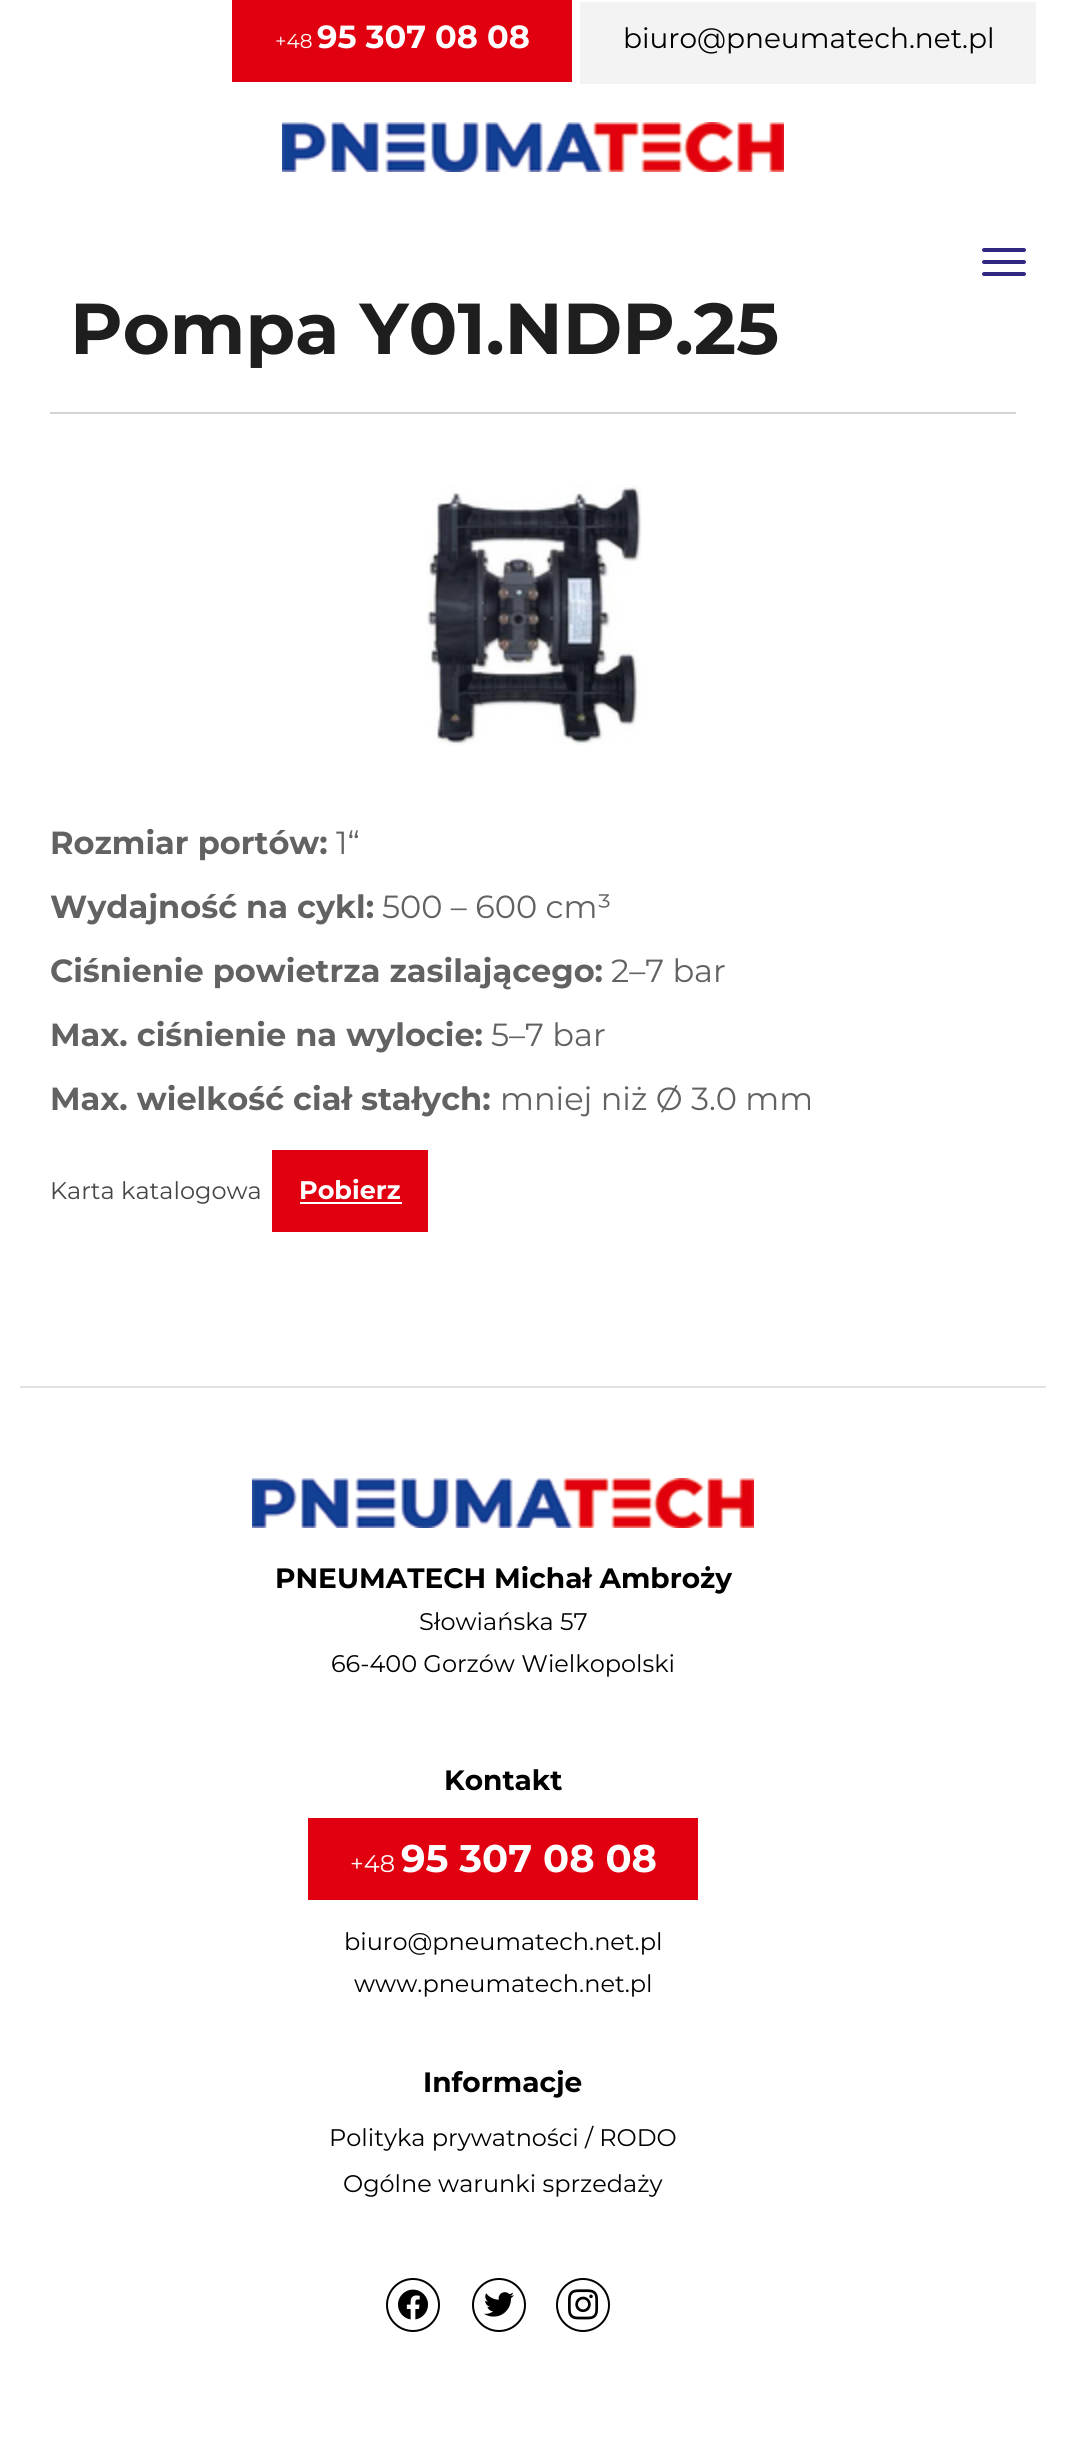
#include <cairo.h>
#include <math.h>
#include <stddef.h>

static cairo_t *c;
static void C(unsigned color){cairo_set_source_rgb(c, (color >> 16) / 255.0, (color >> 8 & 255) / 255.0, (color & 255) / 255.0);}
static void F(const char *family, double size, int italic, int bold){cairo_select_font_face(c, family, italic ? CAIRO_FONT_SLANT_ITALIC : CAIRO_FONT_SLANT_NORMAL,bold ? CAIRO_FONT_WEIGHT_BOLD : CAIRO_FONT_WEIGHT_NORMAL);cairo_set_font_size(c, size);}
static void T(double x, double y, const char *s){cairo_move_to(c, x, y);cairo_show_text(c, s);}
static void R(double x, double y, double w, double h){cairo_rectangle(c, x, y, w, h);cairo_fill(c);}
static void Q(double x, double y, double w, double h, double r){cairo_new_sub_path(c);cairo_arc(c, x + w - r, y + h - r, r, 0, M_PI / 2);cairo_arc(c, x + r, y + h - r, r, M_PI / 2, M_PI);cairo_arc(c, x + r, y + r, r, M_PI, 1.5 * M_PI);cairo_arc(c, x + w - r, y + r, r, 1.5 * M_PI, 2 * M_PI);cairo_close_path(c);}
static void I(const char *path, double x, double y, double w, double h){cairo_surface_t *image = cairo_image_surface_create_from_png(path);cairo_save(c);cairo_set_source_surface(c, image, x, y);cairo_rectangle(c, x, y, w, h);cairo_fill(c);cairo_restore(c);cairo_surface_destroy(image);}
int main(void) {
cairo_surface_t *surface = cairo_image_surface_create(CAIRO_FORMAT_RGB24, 1066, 2440);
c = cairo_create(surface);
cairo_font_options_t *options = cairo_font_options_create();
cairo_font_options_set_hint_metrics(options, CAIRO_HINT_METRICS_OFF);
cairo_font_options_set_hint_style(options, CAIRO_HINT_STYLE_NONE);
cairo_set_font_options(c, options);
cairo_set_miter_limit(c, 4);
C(0xffffff);
cairo_paint(c);
C(0xe1000f);
R(232,0,340,82);
F("Montserrat",20,0,0);
C(0xffffff);
T(275,48,"+48");
F("Montserrat",32,0,1);
T(317,48,"95 307 08 08");
C(0xf3f3f3);
R(580,2,456,82);
F("Montserrat",28,0,0);
C(0x000000);
T(623,48,"biuro@pneumatech.net.pl");
I("1.png",282,122,502,50);
C(0x312783);
Q(982,248,44,4,2);
cairo_fill(c);
Q(982,260,44,4,2);
cairo_fill(c);
Q(982,272,44,4,2);
cairo_fill(c);
C(0xd4d4d4);
R(50,412,966,2);
F("Montserrat",72,0,1);
C(0x1e1e1e);
T(70,354,"Pompa Y01.NDP.25");
I("2.png",426,484,216,261);
F("Montserrat",32,0,1);
C(0x626262);
T(50,854,"Rozmiar portów:");
F("Montserrat",32,0,0);
T(336,854,"1“");
F("Montserrat",32,0,1);
T(50,918,"Wydajność na cykl:");
F("Montserrat",32,0,0);
T(382,918,"500 – 600 cm³");
F("Montserrat",32,0,1);
T(50,982,"Ciśnienie powietrza zasilającego:");
F("Montserrat",32,0,0);
T(611,982,"2–7 bar");
F("Montserrat",32,0,1);
T(50,1046,"Max. ciśnienie na wylocie:");
F("Montserrat",32,0,0);
T(491,1046,"5–7 bar");
F("Montserrat",32,0,1);
T(50,1110,"Max. wielkość ciał stałych:");
F("Montserrat",32,0,0);
T(500,1110,"mniej niż Ø 3.0 mm");
F("Montserrat",24,0,0);
C(0x454545);
T(50,1199,"Karta katalogowa");
C(0xe1000f);
R(272,1150,156,82);
F("Montserrat",25.5,0,1);
C(0xffffff);
T(299,1199,"Pobierz");
R(300,1202,102,2);
C(0xe3e3e3);
R(20,1386,1026,2);
I("1.png",252,1478,502,50);
F("Montserrat",28,0,1);
C(0x000000);
T(275,1588,"PNEUMATECH Michał Ambroży");
F("Montserrat",24,0,0);
T(419,1630,"Słowiańska 57");
T(331,1672,"66-400 Gorzów Wielkopolski");
F("Montserrat",28,0,1);
T(444,1790,"Kontakt");
C(0xe1000f);
R(308,1818,390,82);
F("Montserrat",24,0,0);
C(0xffffff);
T(350,1872,"+48");
F("Montserrat",38.5,0,1);
T(401,1872,"95 307 08 08");
F("Montserrat",24,0,0);
C(0x000000);
T(344,1950,"biuro@pneumatech.net.pl");
T(354,1992,"www.pneumatech.net.pl");
F("Montserrat",28,0,1);
T(423,2092,"Informacje");
F("Montserrat",24,0,0);
T(329,2146,"Polityka prywatności / RODO");
T(343,2192,"Ogólne warunki sprzedaży");
cairo_new_path(c);
cairo_arc(c,413,2305,26,0,2 * M_PI);
cairo_stroke(c);
I("3.png",398,2289,30,31);
cairo_arc(c,499,2305,26,0,2 * M_PI);
cairo_stroke(c);
I("4.png",484,2292,30,25);
cairo_arc(c,583,2305,26,0,2 * M_PI);
cairo_stroke(c);
I("5.png",568,2289,31,31);
cairo_surface_write_to_png(surface, "o.png");
cairo_font_options_destroy(options);
cairo_destroy(c);
cairo_surface_destroy(surface);
return 0;
}
